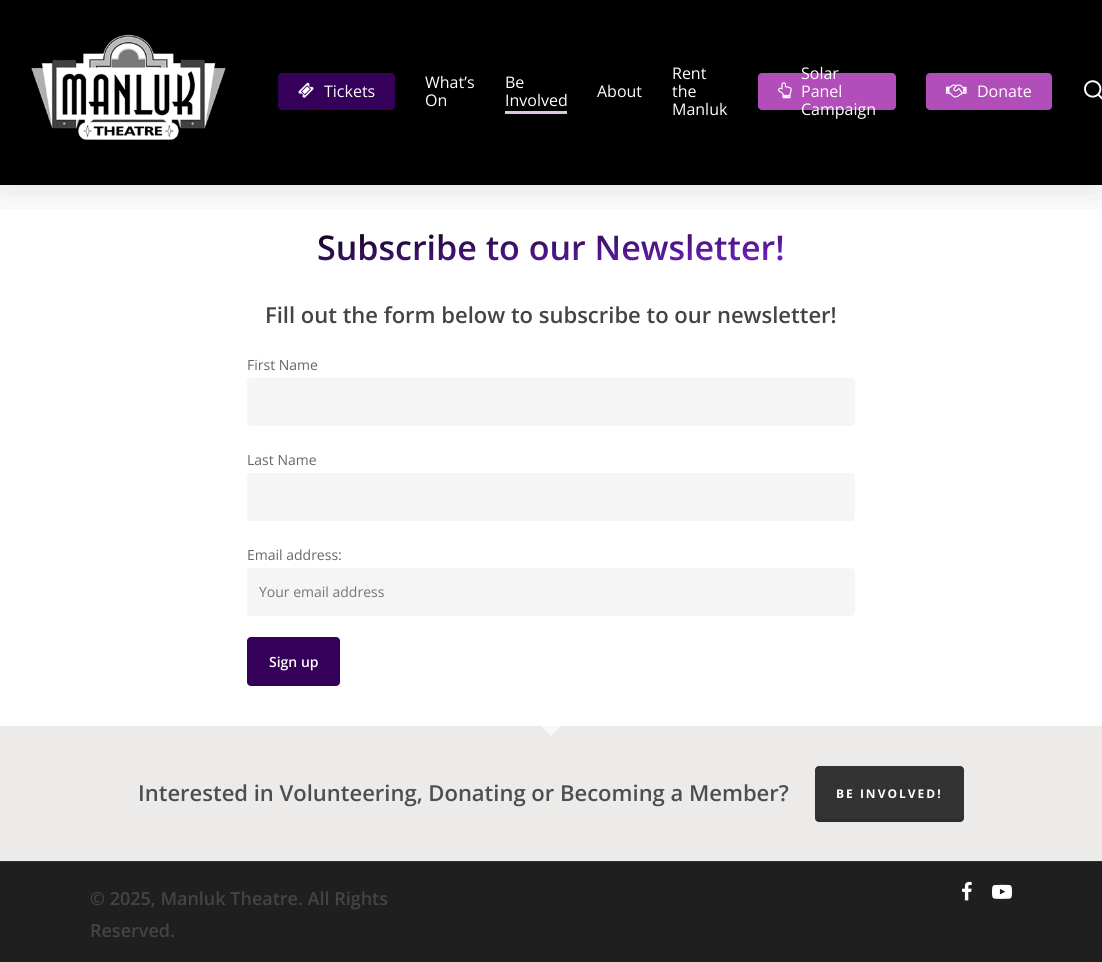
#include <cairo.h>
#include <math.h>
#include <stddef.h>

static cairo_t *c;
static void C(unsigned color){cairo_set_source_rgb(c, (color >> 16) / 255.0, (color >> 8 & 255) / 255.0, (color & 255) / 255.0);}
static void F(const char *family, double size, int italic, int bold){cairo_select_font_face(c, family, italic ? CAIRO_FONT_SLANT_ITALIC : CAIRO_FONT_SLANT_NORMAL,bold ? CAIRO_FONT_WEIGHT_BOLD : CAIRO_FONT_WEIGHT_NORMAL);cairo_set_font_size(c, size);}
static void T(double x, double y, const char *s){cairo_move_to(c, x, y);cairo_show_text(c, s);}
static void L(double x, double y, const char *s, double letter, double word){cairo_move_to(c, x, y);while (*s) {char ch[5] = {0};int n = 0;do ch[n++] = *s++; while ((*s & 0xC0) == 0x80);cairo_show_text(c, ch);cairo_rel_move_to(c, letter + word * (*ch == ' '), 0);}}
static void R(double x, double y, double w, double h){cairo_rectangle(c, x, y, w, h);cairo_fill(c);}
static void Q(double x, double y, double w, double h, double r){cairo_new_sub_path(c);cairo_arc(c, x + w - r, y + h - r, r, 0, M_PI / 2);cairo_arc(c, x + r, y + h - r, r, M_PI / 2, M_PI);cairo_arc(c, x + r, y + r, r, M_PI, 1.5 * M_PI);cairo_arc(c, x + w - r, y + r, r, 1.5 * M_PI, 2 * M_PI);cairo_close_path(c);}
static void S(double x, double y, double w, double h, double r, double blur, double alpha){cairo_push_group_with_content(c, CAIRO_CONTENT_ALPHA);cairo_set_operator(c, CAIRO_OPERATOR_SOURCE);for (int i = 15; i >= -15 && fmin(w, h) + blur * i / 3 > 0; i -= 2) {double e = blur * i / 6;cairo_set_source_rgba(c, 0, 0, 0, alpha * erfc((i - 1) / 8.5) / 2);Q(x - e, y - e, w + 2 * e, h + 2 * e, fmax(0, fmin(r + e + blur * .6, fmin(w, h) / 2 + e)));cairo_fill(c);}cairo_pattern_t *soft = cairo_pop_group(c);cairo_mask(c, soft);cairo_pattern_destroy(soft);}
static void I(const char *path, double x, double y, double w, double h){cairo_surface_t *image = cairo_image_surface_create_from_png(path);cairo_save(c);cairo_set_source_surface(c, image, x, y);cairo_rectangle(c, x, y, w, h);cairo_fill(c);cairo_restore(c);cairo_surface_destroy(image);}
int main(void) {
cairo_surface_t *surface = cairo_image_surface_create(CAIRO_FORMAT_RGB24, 1102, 962);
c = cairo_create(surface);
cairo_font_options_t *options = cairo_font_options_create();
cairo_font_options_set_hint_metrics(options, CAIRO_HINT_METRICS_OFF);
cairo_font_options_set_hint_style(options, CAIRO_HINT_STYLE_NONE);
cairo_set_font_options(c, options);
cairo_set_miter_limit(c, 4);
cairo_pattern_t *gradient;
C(0xffffff);
cairo_paint(c);
C(0x000000);
R(0,0,1102,185);
cairo_save(c);
cairo_rectangle(c,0,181,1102,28);
cairo_clip(c);
C(0x000000);
S(0,-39,1102,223,0,22.5,.15);
cairo_restore(c);
I("1.png",31,34,195,106);
C(0x350059);
Q(278,73,117,37,4);
cairo_fill(c);
I("2.png",298,82,16,16);
F("Open Sans",16,0,0);
C(0xffffff);
T(324,97,"Tickets");
T(425,88,"What’s");
T(425,106,"On");
T(505,88,"Be");
T(505,106,"Involved");
C(0xdec5e2);
R(505,111,62,3);
C(0xffffff);
T(597,97,"About");
T(672,79,"Rent");
T(672,97,"the");
T(672,115,"Manluk");
C(0xb24eba);
Q(758,73,138,37,4);
cairo_fill(c);
C(0xffffff);
T(801,79,"Solar");
T(801,97,"Panel");
T(801,115,"Campaign");
I("3.png",778,82,14,17);
C(0xb24eba);
Q(926,73,126,37,4);
cairo_fill(c);
I("4.png",946,84,21,14);
C(0xffffff);
T(977,97,"Donate");
I("5.png",1084,80,18,20);
F("Open Sans SemiBold",34,0,0);
gradient = cairo_pattern_create_linear(547,203,555,291);
cairo_pattern_add_color_stop_rgba(gradient,0,0,0,0,1);
cairo_pattern_add_color_stop_rgba(gradient,1,0.51,0.141,0.89,1);
cairo_set_source(c,gradient);
cairo_pattern_destroy(gradient);
T(317,260,"Subscribe to our Newsletter!");
F("Open Sans SemiBold",22,0,0);
C(0x444444);
T(265,323,"Fill out the form below to subscribe to our newsletter!");
F("Open Sans",14,0,0);
C(0x676767);
T(247,370,"First Name");
C(0xf5f5f5);
Q(247,378,608,48,4);
cairo_fill(c);
C(0x676767);
T(247,465,"Last Name");
C(0xf5f5f5);
Q(247,473,608,48,4);
cairo_fill(c);
C(0x676767);
T(247,560,"Email address:");
C(0xf5f5f5);
Q(247,568,608,48,4);
cairo_fill(c);
C(0x757575);
T(259,597,"Your email address");
C(0x350059);
Q(247,637,93,49,4);
cairo_fill(c);
F("Open Sans SemiBold",14,0,0);
C(0xffffff);
T(269,667,"Sign up");
C(0x313233);
R(0,861,1102,1);
C(0xecebe9);
R(0,726,1102,135);
C(0xf8f8f8);
cairo_new_path(c);
cairo_move_to(c,541,726);
cairo_line_to(c,561,726);
cairo_line_to(c,551,736);
cairo_close_path(c);
cairo_fill(c);
F("Open Sans SemiBold",22,0,0);
C(0x4b4f52);
T(138,801,"Interested in Volunteering, Donating or Becoming a Member?");
C(0x333333);
Q(815,766,149,56,4);
cairo_fill(c);
cairo_set_source_rgba(c,0,0,0,0.1);
cairo_new_path(c);
cairo_move_to(c,815,815);
cairo_line_to(c,815,818);
cairo_curve_to(c,815,820,817,822,819,822);
cairo_line_to(c,960,822);
cairo_curve_to(c,962,822,964,820,964,818);
cairo_line_to(c,964,815);
cairo_line_to(c,963,818);
cairo_line_to(c,960,819);
cairo_line_to(c,819,819);
cairo_curve_to(c,817,819,815,817,815,815);
cairo_close_path(c);
cairo_fill(c);
F("Open Sans",12,0,1);
C(0xffffff);
L(836,798,"BE INVOLVED!",2,0);
C(0x1f1f1f);
R(0,862,1102,100);
F("Open Sans SemiBold",18,0,0);
C(0x444444);
T(90,905,"© 2025, Manluk Theatre. All Rights");
T(90,937,"Reserved.");
I("6.png",962,881,10,20);
I("7.png",992,884,20,15);
cairo_surface_write_to_png(surface, "o.png");
cairo_font_options_destroy(options);
cairo_destroy(c);
cairo_surface_destroy(surface);
return 0;
}
